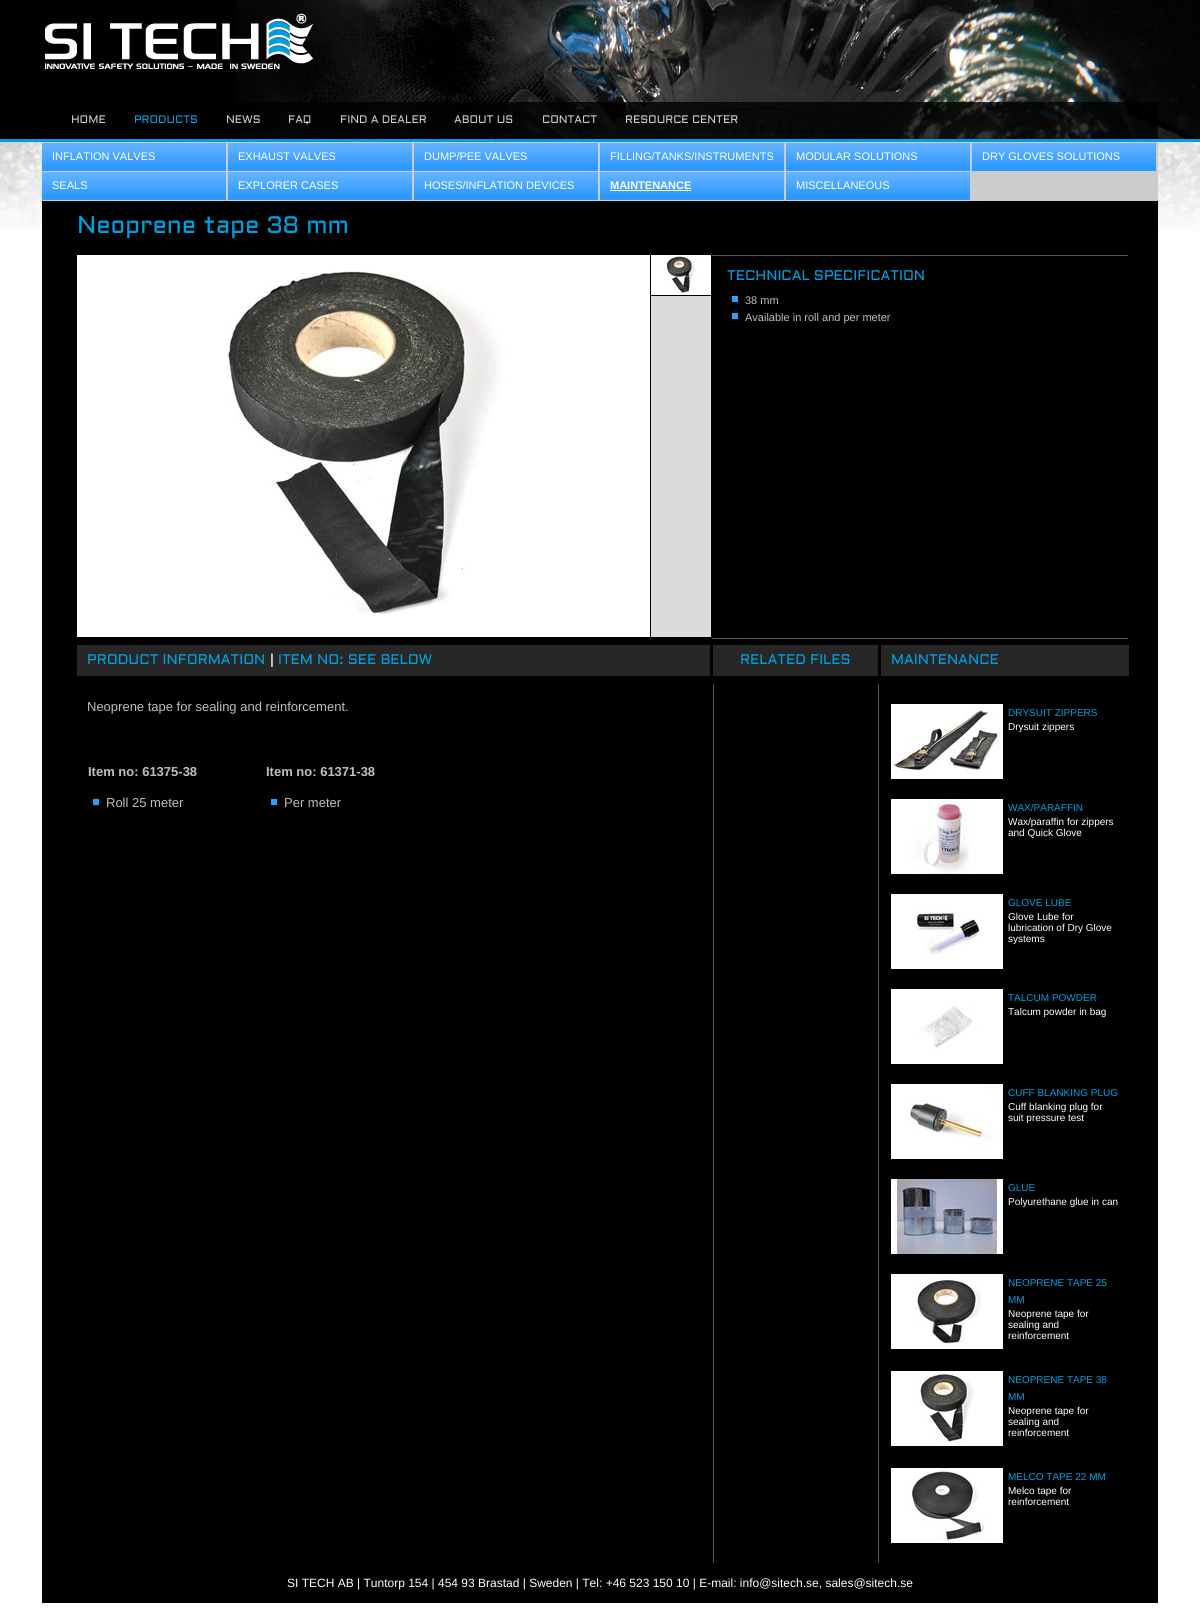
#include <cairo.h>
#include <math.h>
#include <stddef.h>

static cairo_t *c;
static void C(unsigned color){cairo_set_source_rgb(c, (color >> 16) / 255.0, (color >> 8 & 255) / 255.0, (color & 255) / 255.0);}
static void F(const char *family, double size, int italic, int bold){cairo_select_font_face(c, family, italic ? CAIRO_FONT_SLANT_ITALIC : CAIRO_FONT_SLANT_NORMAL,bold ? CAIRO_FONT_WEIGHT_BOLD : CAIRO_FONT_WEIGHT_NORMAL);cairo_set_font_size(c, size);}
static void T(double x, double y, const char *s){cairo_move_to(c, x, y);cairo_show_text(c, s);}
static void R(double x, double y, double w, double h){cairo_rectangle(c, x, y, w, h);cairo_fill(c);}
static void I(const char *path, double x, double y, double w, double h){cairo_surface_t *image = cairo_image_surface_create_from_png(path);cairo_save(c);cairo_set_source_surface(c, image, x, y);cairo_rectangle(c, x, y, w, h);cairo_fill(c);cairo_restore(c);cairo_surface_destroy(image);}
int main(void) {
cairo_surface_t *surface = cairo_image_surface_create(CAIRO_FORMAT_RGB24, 1200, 1622);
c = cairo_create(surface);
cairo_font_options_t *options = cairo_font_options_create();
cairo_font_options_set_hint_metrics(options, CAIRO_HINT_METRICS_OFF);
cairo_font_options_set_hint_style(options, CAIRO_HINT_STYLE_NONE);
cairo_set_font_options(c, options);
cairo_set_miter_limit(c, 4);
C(0xffffff);
cairo_paint(c);
I("1.png",0,0,1200,231);
I("2.png",45,13,268,56);
cairo_set_source_rgba(c,0,0,0,0.8);
R(42,102,1116,37);
F("Aldrich",11,0,0);
C(0xcccccc);
T(71,123,"HOME");
C(0x00a0de);
T(134,123,"PRODUCTS");
C(0xcccccc);
T(226,123,"NEWS");
T(288,123,"FAQ");
T(340,123,"FIND A DEALER");
T(454,123,"ABOUT US");
T(542,123,"CONTACT");
T(625,123,"RESOURCE CENTER");
C(0x000000);
R(42,201,1116,1362);
C(0xcccccc);
R(42,142,1116,59);
I("3.png",42,143,184,28);
F("Liberation Sans",11,0,0);
C(0xffffff);
T(52,160,"INFLATION VALVES");
I("3.png",228,143,184,28);
T(238,160,"EXHAUST VALVES");
I("3.png",414,143,184,28);
T(424,160,"DUMP/PEE VALVES");
I("3.png",600,143,184,28);
T(610,160,"FILLING/TANKS/INSTRUMENTS");
I("3.png",786,143,184,28);
T(796,160,"MODULAR SOLUTIONS");
I("3.png",972,143,184,28);
T(982,160,"DRY GLOVES SOLUTIONS");
I("3.png",42,172,184,28);
T(52,189,"SEALS");
I("3.png",228,172,184,28);
T(238,189,"EXPLORER CASES");
I("3.png",414,172,184,28);
T(424,189,"HOSES/INFLATION DEVICES");
I("3.png",600,172,184,28);
F("Liberation Sans",11,0,1);
T(610,189,"MAINTENANCE");
R(610,190,81,1);
I("3.png",786,172,184,28);
F("Liberation Sans",11,0,0);
T(796,189,"MISCELLANEOUS");
F("Aldrich",24,0,0);
C(0x00a0de);
T(77,233,"Neoprene tape 38 mm");
I("4.png",77,255,573,382);
C(0xdbdbdb);
R(651,296,60,341);
I("5.png",651,255,60,40);
C(0x555555);
R(712,255,416,1);
R(712,638,416,1);
F("Aldrich",14,0,0);
C(0x00a0de);
T(727,280,"TECHNICAL SPECIFICATION");
C(0x2ca0fc);
R(732,296,6,6);
F("Liberation Sans",11,0,0);
C(0xbfbfbf);
T(745,304,"38 mm");
C(0x2ca0fc);
R(732,313,6,6);
C(0xbfbfbf);
T(745,321,"Available in roll and per meter");
C(0x272727);
R(77,645,633,31);
F("Aldrich",14,0,0);
C(0x00a0de);
T(87,664,"PRODUCT INFORMATION");
C(0xffffff);
T(270,664,"|");
C(0x00a0de);
T(278,664,"ITEM NO: SEE BELOW");
C(0x272727);
R(713,645,165,31);
C(0x00a0de);
T(740,664,"RELATED FILES");
C(0x272727);
R(881,645,248,31);
C(0x00a0de);
T(891,664,"MAINTENANCE");
F("Liberation Sans",13,0,0);
C(0xbfbfbf);
T(87,711,"Neoprene tape for sealing and reinforcement.");
F("Liberation Sans",13,0,1);
T(88,776,"Item no: 61375-38");
C(0x2ca0fc);
R(93,799,6,6);
F("Liberation Sans",13,0,0);
C(0xbfbfbf);
T(106,807,"Roll 25 meter");
F("Liberation Sans",13,0,1);
T(266,776,"Item no: 61371-38");
C(0x2ca0fc);
R(271,799,6,6);
F("Liberation Sans",13,0,0);
C(0xbfbfbf);
T(284,807,"Per meter");
C(0x575757);
R(878,684,1,880);
R(713,684,1,880);
I("6.png",891,704,112,75);
F("Liberation Sans",10,0,0);
C(0x00a0de);
T(1008,716,"DRYSUIT ZIPPERS");
C(0xffffff);
T(1008,730,"Drysuit zippers");
I("7.png",891,799,112,75);
C(0x00a0de);
T(1008,811,"WAX/PARAFFIN");
C(0xffffff);
T(1008,825,"Wax/paraffin for zippers");
T(1008,836,"and Quick Glove");
I("8.png",891,894,112,75);
C(0x00a0de);
T(1008,906,"GLOVE LUBE");
C(0xffffff);
T(1008,920,"Glove Lube for");
T(1008,931,"lubrication of Dry Glove");
T(1008,942,"systems");
I("9.png",891,989,112,75);
C(0x00a0de);
T(1008,1001,"TALCUM POWDER");
C(0xffffff);
T(1008,1015,"Talcum powder in bag");
I("10.png",891,1084,112,75);
C(0x00a0de);
T(1008,1096,"CUFF BLANKING PLUG");
C(0xffffff);
T(1008,1110,"Cuff blanking plug for");
T(1008,1121,"suit pressure test");
I("11.png",891,1179,112,75);
C(0x00a0de);
T(1008,1191,"GLUE");
C(0xffffff);
T(1008,1205,"Polyurethane glue in can");
I("12.png",891,1274,112,75);
C(0x00a0de);
T(1008,1286,"NEOPRENE TAPE 25");
T(1008,1303,"MM");
C(0xffffff);
T(1008,1317,"Neoprene tape for");
T(1008,1328,"sealing and");
T(1008,1339,"reinforcement");
I("13.png",891,1371,112,75);
C(0x00a0de);
T(1008,1383,"NEOPRENE TAPE 38");
T(1008,1400,"MM");
C(0xffffff);
T(1008,1414,"Neoprene tape for");
T(1008,1425,"sealing and");
T(1008,1436,"reinforcement");
I("14.png",891,1468,112,75);
C(0x00a0de);
T(1008,1480,"MELCO TAPE 22 MM");
C(0xffffff);
T(1008,1494,"Melco tape for");
T(1008,1505,"reinforcement");
C(0x000000);
R(42,1563,1116,40);
F("Liberation Sans",12,0,0);
C(0xffffff);
T(287,1587,"SI TECH AB | Tuntorp 154 | 454 93 Brastad | Sweden | Tel: +46 523 150 10 | E-mail: info@sitech.se, sales@sitech.se");
cairo_surface_write_to_png(surface, "o.png");
cairo_font_options_destroy(options);
cairo_destroy(c);
cairo_surface_destroy(surface);
return 0;
}
